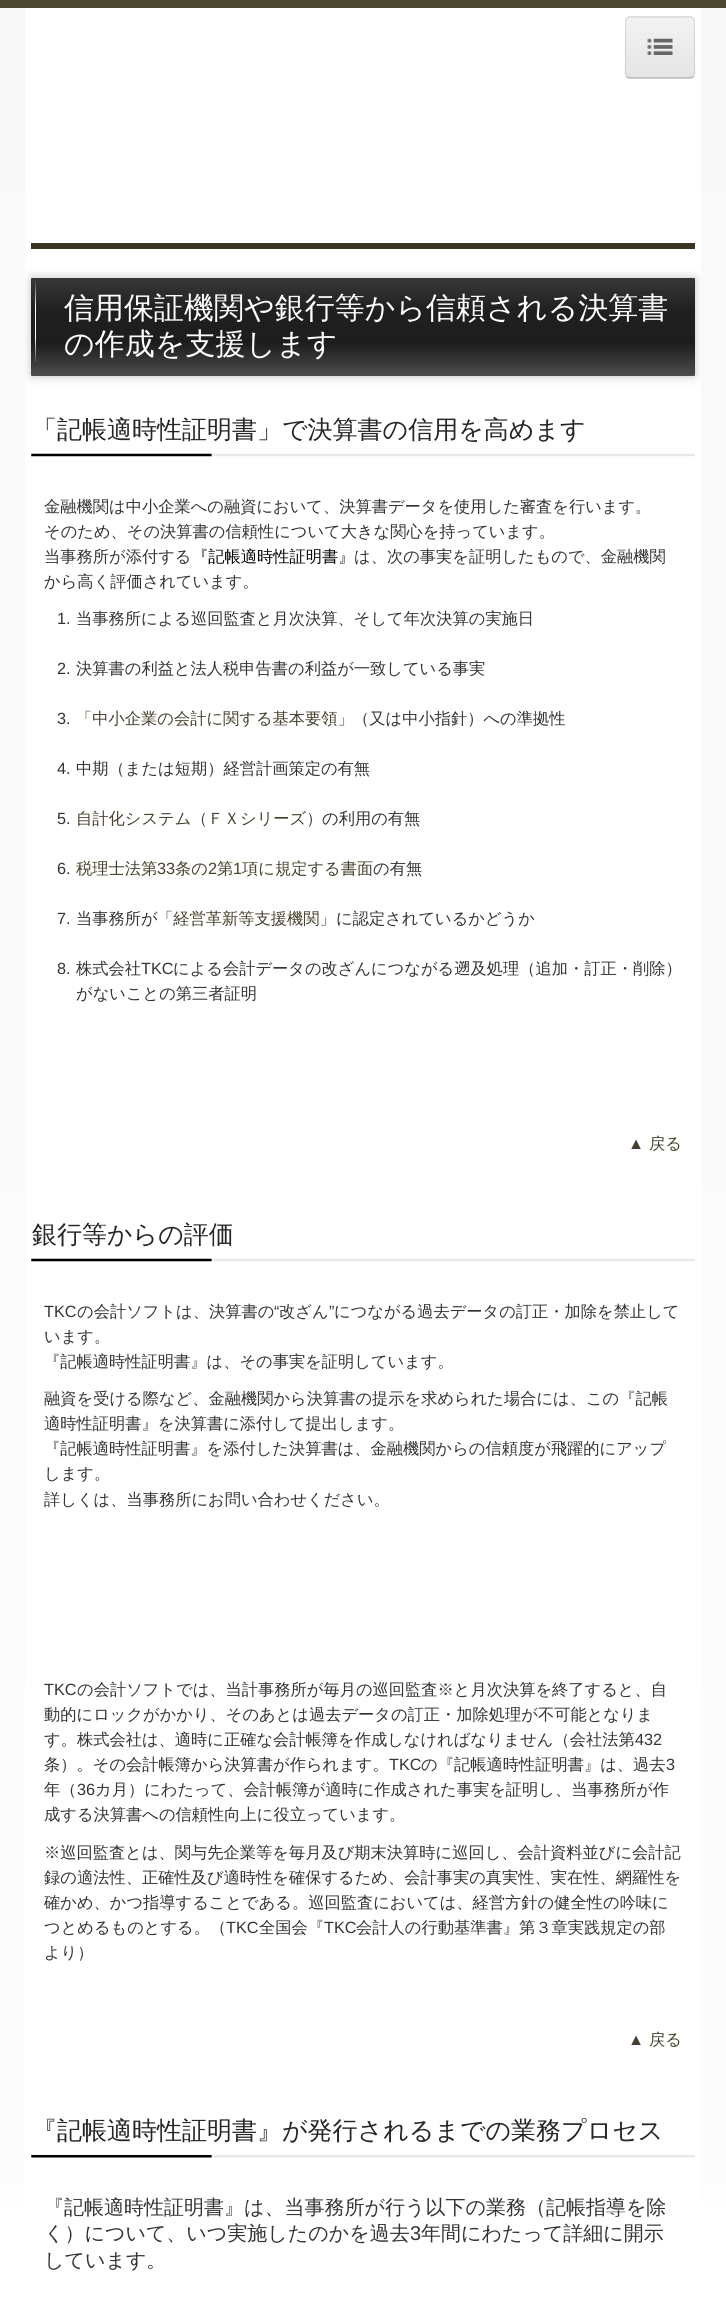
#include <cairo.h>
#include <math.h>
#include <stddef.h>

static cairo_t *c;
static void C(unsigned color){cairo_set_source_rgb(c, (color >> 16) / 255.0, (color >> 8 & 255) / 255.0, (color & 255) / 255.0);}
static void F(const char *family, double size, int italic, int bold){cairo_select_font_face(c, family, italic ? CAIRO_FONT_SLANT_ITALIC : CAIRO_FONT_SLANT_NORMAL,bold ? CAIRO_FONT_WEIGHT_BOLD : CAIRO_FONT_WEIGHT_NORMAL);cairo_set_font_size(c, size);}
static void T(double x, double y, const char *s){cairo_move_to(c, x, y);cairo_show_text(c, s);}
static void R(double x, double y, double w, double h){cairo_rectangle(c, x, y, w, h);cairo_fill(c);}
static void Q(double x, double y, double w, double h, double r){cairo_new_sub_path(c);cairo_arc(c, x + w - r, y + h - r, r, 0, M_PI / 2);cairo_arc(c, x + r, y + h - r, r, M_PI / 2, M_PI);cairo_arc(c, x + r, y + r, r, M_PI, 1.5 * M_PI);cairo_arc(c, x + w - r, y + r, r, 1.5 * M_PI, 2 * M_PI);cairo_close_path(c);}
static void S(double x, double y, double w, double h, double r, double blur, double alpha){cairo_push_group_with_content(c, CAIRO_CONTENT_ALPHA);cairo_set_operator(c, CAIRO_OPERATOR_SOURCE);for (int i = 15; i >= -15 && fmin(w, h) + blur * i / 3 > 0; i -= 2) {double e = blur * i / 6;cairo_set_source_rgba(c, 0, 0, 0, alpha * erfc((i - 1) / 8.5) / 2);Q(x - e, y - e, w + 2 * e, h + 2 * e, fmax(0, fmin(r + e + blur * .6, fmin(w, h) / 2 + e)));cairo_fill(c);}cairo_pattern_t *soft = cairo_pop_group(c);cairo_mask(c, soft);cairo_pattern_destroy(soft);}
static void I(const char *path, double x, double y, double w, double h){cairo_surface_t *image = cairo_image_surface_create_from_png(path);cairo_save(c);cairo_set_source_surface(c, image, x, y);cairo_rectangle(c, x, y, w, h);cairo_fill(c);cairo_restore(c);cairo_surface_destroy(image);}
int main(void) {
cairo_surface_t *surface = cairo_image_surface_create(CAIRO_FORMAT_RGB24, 726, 2321);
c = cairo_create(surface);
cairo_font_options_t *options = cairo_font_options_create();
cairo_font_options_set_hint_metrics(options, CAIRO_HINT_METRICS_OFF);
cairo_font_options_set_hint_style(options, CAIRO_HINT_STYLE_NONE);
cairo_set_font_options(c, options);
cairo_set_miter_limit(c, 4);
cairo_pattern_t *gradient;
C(0xffffff);
cairo_paint(c);
C(0x4b4630);
R(0,0,726,8);
gradient = cairo_pattern_create_linear(363,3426,363,0);
cairo_pattern_add_color_stop_rgba(gradient,0,1,1,1,1);
cairo_pattern_add_color_stop_rgba(gradient,1,0.973,0.973,0.973,1);
cairo_pattern_add_color_stop_rgba(gradient,1,1,1,1,1);
cairo_set_source(c,gradient);
cairo_pattern_destroy(gradient);
R(0,8,726,2194);
C(0xffffff);
R(25,8,676,2194);
C(0x3a3522);
R(31,243,664,6);
C(0xededed);
Q(625,16,70,63,5);
cairo_fill(c);
cairo_save(c);
Q(625,16,70,63,5);
cairo_clip(c);
gradient = cairo_pattern_create_linear(660,17,660,78);
cairo_pattern_add_color_stop_rgba(gradient,0,0.949,0.949,0.949,1);
cairo_pattern_add_color_stop_rgba(gradient,1,0.898,0.898,0.898,1);
cairo_set_source(c,gradient);
cairo_pattern_destroy(gradient);
R(625,18,70,60);
cairo_restore(c);
cairo_new_path(c);
cairo_move_to(c,693,77);
cairo_line_to(c,690.5,78);
cairo_line_to(c,629.5,78);
cairo_line_to(c,627,77);
cairo_set_source_rgba(c,0,0,0,0.25);
cairo_set_line_width(c,1.2);
cairo_stroke(c);
cairo_new_path(c);
cairo_move_to(c,627,77);
cairo_curve_to(c,624,74,625.5,67,625.5,65);
cairo_line_to(c,625.5,30);
cairo_curve_to(c,625.5,15,625,17,640,17);
cairo_line_to(c,680,17);
cairo_curve_to(c,695,17,694.5,15,694.5,30);
cairo_line_to(c,694.5,65);
cairo_curve_to(c,694.5,67,696,74,693,77);
cairo_set_source_rgba(c,0,0,0,0.1);
cairo_stroke(c);
I("1.png",647,38,26,17);
cairo_save(c);
cairo_rectangle(c,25,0,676,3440);
cairo_clip(c);
C(0xc3c3c3);
S(31,278,664,98,1,5,1);
cairo_restore(c);
gradient = cairo_pattern_create_linear(363,277,363,376);
cairo_pattern_add_color_stop_rgba(gradient,0,0.224,0.224,0.224,1);
cairo_pattern_add_color_stop_rgba(gradient,.33,0.125,0.125,0.125,1);
cairo_pattern_add_color_stop_rgba(gradient,.67,0.114,0.114,0.114,1);
cairo_pattern_add_color_stop_rgba(gradient,1,0.302,0.302,0.302,1);
cairo_set_source(c,gradient);
cairo_pattern_destroy(gradient);
Q(31,278,664,98,1);
cairo_fill(c);
gradient = cairo_pattern_create_linear(36,278,36,366);
cairo_pattern_add_color_stop_rgba(gradient,0,0.176,0.176,0.176,1);
cairo_pattern_add_color_stop_rgba(gradient,.33,1,1,1,1);
cairo_pattern_add_color_stop_rgba(gradient,.67,1,1,1,1);
cairo_pattern_add_color_stop_rgba(gradient,1,0.176,0.176,0.176,1);
cairo_set_source(c,gradient);
cairo_pattern_destroy(gradient);
R(35,278,1,88);
F("WenQuanYi Zen Hei Medium",30,0,0);
C(0xffffff);
T(64,318,"信用保証機関や銀行等から信頼される決算書");
T(64,354,"の作成を支援します");
I("2.png",31,453,664,4);
F("WenQuanYi Zen Hei Medium",25,0,0);
C(0x252525);
T(32,438,"「記帳適時性証明書」で決算書の信用を高めます");
F("WenQuanYi Zen Hei Medium",16.25,0,0);
C(0x333333);
T(44,512,"金融機関は中小企業への融資において、決算書データを使用した審査を行います。");
T(44,537,"そのため、その決算書の信頼性について大きな関心を持っています。");
T(44,562,"当事務所が添付する");
C(0x000000);
T(192,562,"『記帳適時性証明書』");
C(0x333333);
T(354,562,"は、次の事実を証明したもので、金融機関");
T(44,587,"から高く評価されています。");
F("Liberation Sans",16.25,0,0);
T(57,624,"1.");
F("WenQuanYi Zen Hei Medium",16.25,0,0);
T(76,624,"当事務所による巡回監査と月次決算、そして年次決算の実施日");
F("Liberation Sans",16.25,0,0);
T(57,674,"2.");
F("WenQuanYi Zen Hei Medium",16.25,0,0);
T(76,674,"決算書の利益と法人税申告書の利益が一致している事実");
F("Liberation Sans",16.25,0,0);
T(57,724,"3.");
F("WenQuanYi Zen Hei Medium",16.25,0,0);
C(0x45402d);
T(76,724,"「中小企業の会計に関する基本要領」");
C(0x333333);
T(353,724,"（又は中小指針）への準拠性");
F("Liberation Sans",16.25,0,0);
T(57,774,"4.");
F("WenQuanYi Zen Hei Medium",16.25,0,0);
T(76,774,"中期（または短期）経営計画策定の有無");
F("Liberation Sans",16.25,0,0);
T(57,824,"5.");
F("WenQuanYi Zen Hei Medium",16.25,0,0);
C(0x45402d);
T(76,824,"自計化システム（ＦＸシリーズ）");
C(0x333333);
T(322,824,"の利用の有無");
F("Liberation Sans",16.25,0,0);
T(57,874,"6.");
F("WenQuanYi Zen Hei Medium",16.25,0,0);
C(0x45402d);
T(76,874,"税理士法第");
F("Liberation Sans",16.25,0,0);
T(157,874,"33");
F("WenQuanYi Zen Hei Medium",16.25,0,0);
T(175,874,"条の");
F("Liberation Sans",16.25,0,0);
T(208,874,"2");
F("WenQuanYi Zen Hei Medium",16.25,0,0);
T(217,874,"第");
F("Liberation Sans",16.25,0,0);
T(233,874,"1");
F("WenQuanYi Zen Hei Medium",16.25,0,0);
T(242,874,"項に規定する書面");
C(0x333333);
T(373,874,"の有無");
F("Liberation Sans",16.25,0,0);
T(57,924,"7.");
F("WenQuanYi Zen Hei Medium",16.25,0,0);
T(76,924,"当事務所が");
C(0x45402d);
T(157,924,"「経営革新等支援機関」");
C(0x333333);
T(336,924,"に認定されているかどうか");
F("Liberation Sans",16.25,0,0);
T(57,974,"8.");
F("WenQuanYi Zen Hei Medium",16.25,0,0);
T(76,974,"株式会社");
F("Liberation Sans",16.25,0,0);
T(141,974,"TKC");
F("WenQuanYi Zen Hei Medium",16.25,0,0);
T(173,974,"による会計データの改ざんにつながる遡及処理（追加・訂正・削除）");
T(76,999,"がないことの第三者証明");
F("Liberation Sans",16.25,0,0);
C(0x45402d);
T(628,1149,"▲");
F("WenQuanYi Zen Hei Medium",16.25,0,0);
T(649,1149,"戻る");
I("2.png",31,1258,664,4);
F("WenQuanYi Zen Hei Medium",25,0,0);
C(0x252525);
T(32,1243,"銀行等からの評価");
F("Liberation Sans",16.25,0,0);
C(0x333333);
T(44,1317,"TKC");
F("WenQuanYi Zen Hei Medium",16.25,0,0);
T(77,1317,"の会計ソフトは、決算書の");
F("Liberation Sans",16.25,0,0);
T(274,1317,"“");
F("WenQuanYi Zen Hei Medium",16.25,0,0);
T(279,1317,"改ざん");
F("Liberation Sans",16.25,0,0);
T(329,1317,"”");
F("WenQuanYi Zen Hei Medium",16.25,0,0);
T(334,1317,"につながる過去データの訂正・加除を禁止して");
T(44,1342,"います。");
T(44,1367,"『記帳適時性証明書』は、その事実を証明しています。");
T(44,1404,"融資を受ける際など、金融機関から決算書の提示を求められた場合には、この『記帳");
T(44,1429,"適時性証明書』を決算書に添付して提出します。");
T(44,1454,"『記帳適時性証明書』を添付した決算書は、金融機関からの信頼度が飛躍的にアップ");
T(44,1479,"します。");
T(44,1505,"詳しくは、当事務所にお問い合わせください。");
F("Liberation Sans",16.25,0,0);
T(44,1695,"TKC");
F("WenQuanYi Zen Hei Medium",16.25,0,0);
T(77,1695,"の会計ソフトでは、当計事務所が毎月の巡回監査※と月次決算を終了すると、自");
T(44,1720,"動的にロックがかかり、そのあとは過去データの訂正・加除処理が不可能となりま");
T(44,1745,"す。株式会社は、適時に正確な会計帳簿を作成しなければなりません（会社法第");
F("Liberation Sans",16.25,0,0);
T(635,1745,"432");
F("WenQuanYi Zen Hei Medium",16.25,0,0);
T(44,1770,"条）。その会計帳簿から決算書が作られます。");
F("Liberation Sans",16.25,0,0);
T(389,1770,"TKC");
F("WenQuanYi Zen Hei Medium",16.25,0,0);
T(421,1770,"の『記帳適時性証明書』は、過去");
F("Liberation Sans",16.25,0,0);
T(666,1770,"3");
F("WenQuanYi Zen Hei Medium",16.25,0,0);
T(44,1795,"年（");
F("Liberation Sans",16.25,0,0);
T(77,1795,"36");
F("WenQuanYi Zen Hei Medium",16.25,0,0);
T(95,1795,"カ月）にわたって、会計帳簿が適時に作成された事実を証明し、当事務所が作");
T(44,1820,"成する決算書への信頼性向上に役立っています。");
T(44,1858,"※巡回監査とは、関与先企業等を毎月及び期末決算時に巡回し、会計資料並びに会計記");
T(44,1883,"録の適法性、正確性及び適時性を確保するため、会計事実の真実性、実在性、網羅性を");
T(44,1908,"確かめ、かつ指導することである。巡回監査においては、経営方針の健全性の吟味に");
T(44,1933,"つとめるものとする。（");
F("Liberation Sans",16.25,0,0);
T(226,1933,"TKC");
F("WenQuanYi Zen Hei Medium",16.25,0,0);
T(259,1933,"全国会『");
F("Liberation Sans",16.25,0,0);
T(324,1933,"TKC");
F("WenQuanYi Zen Hei Medium",16.25,0,0);
T(356,1933,"会計人の行動基準書』第３章実践規定の部");
T(44,1958,"より）");
F("Liberation Sans",16.25,0,0);
C(0x45402d);
T(628,2045,"▲");
F("WenQuanYi Zen Hei Medium",16.25,0,0);
T(649,2045,"戻る");
I("3.png",31,2155,664,3);
F("WenQuanYi Zen Hei Medium",25,0,0);
C(0x252525);
T(32,2139,"『記帳適時性証明書』が発行されるまでの業務プロセス");
F("WenQuanYi Zen Hei Medium",20,0,0);
C(0x333333);
T(44,2214,"『記帳適時性証明書』は、当事務所が行う以下の業務（記帳指導を除");
T(44,2240,"く）について、いつ実施したのかを過去");
F("Liberation Sans",20,0,0);
T(410,2240,"3");
F("WenQuanYi Zen Hei Medium",20,0,0);
T(421,2240,"年間にわたって詳細に開示");
T(44,2267,"しています。");
cairo_surface_write_to_png(surface, "o.png");
cairo_font_options_destroy(options);
cairo_destroy(c);
cairo_surface_destroy(surface);
return 0;
}
